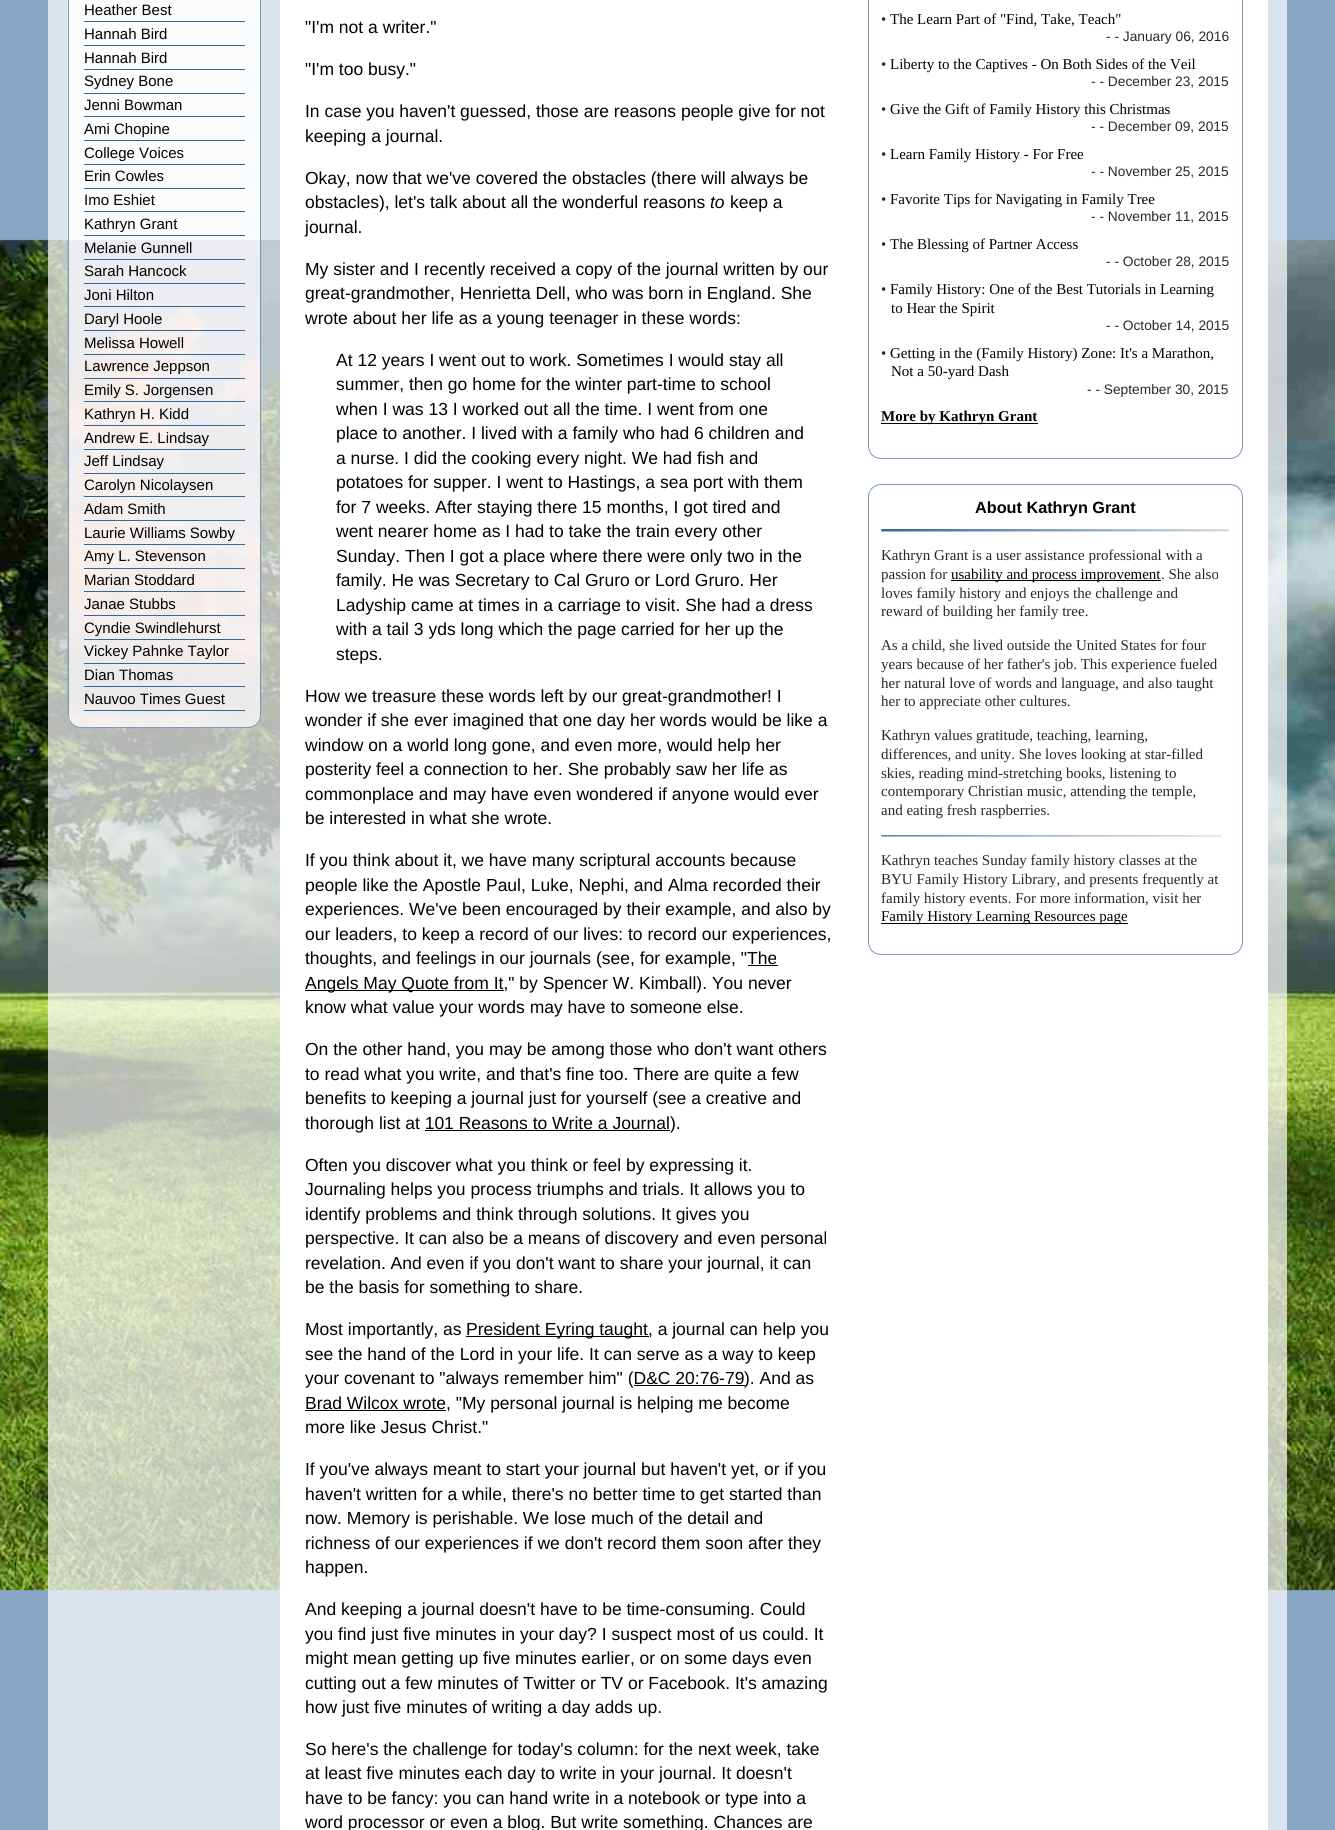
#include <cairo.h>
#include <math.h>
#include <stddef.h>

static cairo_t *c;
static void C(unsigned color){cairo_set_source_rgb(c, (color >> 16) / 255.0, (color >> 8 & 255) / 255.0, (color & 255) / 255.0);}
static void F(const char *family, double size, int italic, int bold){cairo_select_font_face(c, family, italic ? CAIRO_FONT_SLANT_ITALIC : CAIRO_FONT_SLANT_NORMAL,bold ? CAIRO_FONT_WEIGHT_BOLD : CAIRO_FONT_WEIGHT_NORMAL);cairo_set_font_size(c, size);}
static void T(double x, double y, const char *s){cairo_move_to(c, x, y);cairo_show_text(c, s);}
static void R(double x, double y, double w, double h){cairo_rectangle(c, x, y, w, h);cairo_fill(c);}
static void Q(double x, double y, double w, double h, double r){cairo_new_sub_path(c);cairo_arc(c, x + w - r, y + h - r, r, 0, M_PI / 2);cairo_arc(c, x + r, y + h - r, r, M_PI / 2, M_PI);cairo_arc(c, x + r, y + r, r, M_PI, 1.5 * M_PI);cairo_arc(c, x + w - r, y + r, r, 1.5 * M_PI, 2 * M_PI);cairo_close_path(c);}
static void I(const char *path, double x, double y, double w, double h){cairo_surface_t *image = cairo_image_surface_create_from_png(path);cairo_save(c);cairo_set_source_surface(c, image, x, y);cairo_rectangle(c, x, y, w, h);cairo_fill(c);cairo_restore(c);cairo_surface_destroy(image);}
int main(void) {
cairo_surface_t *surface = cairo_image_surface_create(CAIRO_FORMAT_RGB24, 1335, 1830);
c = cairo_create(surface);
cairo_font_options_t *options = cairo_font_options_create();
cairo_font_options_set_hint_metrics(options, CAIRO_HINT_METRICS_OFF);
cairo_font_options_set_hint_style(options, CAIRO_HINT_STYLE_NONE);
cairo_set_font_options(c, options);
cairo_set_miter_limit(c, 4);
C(0x87a5c4);
cairo_paint(c);
C(0xdbe4ed);
R(48,0,1239,1830);
I("1.png",0,239,1335,1352);
I("2.png",67,240,195,488);
I("3.png",67,0,195,728);
Q(68.5,-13.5,192,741,12.5);
C(0x7a99b8);
cairo_set_line_width(c,1);
cairo_stroke(c);
F("Liberation Sans",15,0,0);
C(0x000000);
T(84,15,"Heather Best");
C(0x336699);
R(84,21,161,1);
C(0x000000);
T(84,39,"Hannah Bird");
C(0x336699);
R(84,45,161,1);
C(0x000000);
T(84,63,"Hannah Bird");
C(0x336699);
R(84,69,161,1);
C(0x000000);
T(84,86,"Sydney Bone");
C(0x336699);
R(84,93,161,1);
C(0x000000);
T(84,110,"Jenni Bowman");
C(0x336699);
R(84,116,161,1);
C(0x000000);
T(84,134,"Ami Chopine");
C(0x336699);
R(84,140,161,1);
C(0x000000);
T(84,158,"College Voices");
C(0x336699);
R(84,164,161,1);
C(0x000000);
T(84,181,"Erin Cowles");
C(0x336699);
R(84,188,161,1);
C(0x000000);
T(84,205,"Imo Eshiet");
C(0x336699);
R(84,211,161,1);
C(0x000000);
T(84,229,"Kathryn Grant");
C(0x336699);
R(84,235,161,1);
C(0x000000);
T(84,253,"Melanie Gunnell");
C(0x336699);
R(84,259,161,1);
C(0x000000);
T(84,276,"Sarah Hancock");
C(0x336699);
R(84,283,161,1);
C(0x000000);
T(84,300,"Joni Hilton");
C(0x336699);
R(84,306,161,1);
C(0x000000);
T(84,324,"Daryl Hoole");
C(0x336699);
R(84,330,161,1);
C(0x000000);
T(84,348,"Melissa Howell");
C(0x336699);
R(84,354,161,1);
C(0x000000);
T(84,371,"Lawrence Jeppson");
C(0x336699);
R(84,378,161,1);
C(0x000000);
T(84,395,"Emily S. Jorgensen");
C(0x336699);
R(84,401,161,1);
C(0x000000);
T(84,419,"Kathryn H. Kidd");
C(0x336699);
R(84,425,161,1);
C(0x000000);
T(84,443,"Andrew E. Lindsay");
C(0x336699);
R(84,449,161,1);
C(0x000000);
T(84,466,"Jeff Lindsay");
C(0x336699);
R(84,473,161,1);
C(0x000000);
T(84,490,"Carolyn Nicolaysen");
C(0x336699);
R(84,496,161,1);
C(0x000000);
T(84,514,"Adam Smith");
C(0x336699);
R(84,520,161,1);
C(0x000000);
T(84,538,"Laurie Williams Sowby");
C(0x336699);
R(84,544,161,1);
C(0x000000);
T(84,561,"Amy L. Stevenson");
C(0x336699);
R(84,568,161,1);
C(0x000000);
T(84,585,"Marian Stoddard");
C(0x336699);
R(84,591,161,1);
C(0x000000);
T(84,609,"Janae Stubbs");
C(0x336699);
R(84,615,161,1);
C(0x000000);
T(84,633,"Cyndie Swindlehurst");
C(0x336699);
R(84,639,161,1);
C(0x000000);
T(84,656,"Vickey Pahnke Taylor");
C(0x336699);
R(84,663,161,1);
C(0x000000);
T(84,680,"Dian Thomas");
C(0x336699);
R(84,686,161,1);
C(0x000000);
T(84,704,"Nauvoo Times Guest");
C(0x336699);
R(84,710,161,1);
C(0xffffff);
R(280,0,988,1830);
F("Liberation Sans",17.5,0,0);
C(0x000000);
T(305,33,"\"I'm not a writer.\"");
T(305,75,"\"I'm too busy.\"");
T(305,117,"In case you haven't guessed, those are reasons people give for not");
T(305,142,"keeping a journal.");
T(305,184,"Okay, now that we've covered the obstacles (there will always be");
T(305,208,"obstacles), let's talk about all the wonderful reasons");
F("Liberation Sans",17.5,1,0);
T(710,208,"to");
F("Liberation Sans",17.5,0,0);
T(730,208,"keep a");
T(305,233,"journal.");
T(305,275,"My sister and I recently received a copy of the journal written by our");
T(305,299,"great-grandmother, Henrietta Dell, who was born in England. She");
T(305,324,"wrote about her life as a young teenager in these words:");
T(336,366,"At 12 years I went out to work. Sometimes I would stay all");
T(336,390,"summer, then go home for the winter part-time to school");
T(336,415,"when I was 13 I worked out all the time. I went from one");
T(336,439,"place to another. I lived with a family who had 6 children and");
T(336,464,"a nurse. I did the cooking every night. We had fish and");
T(336,488,"potatoes for supper. I went to Hastings, a sea port with them");
T(336,513,"for 7 weeks. After staying there 15 months, I got tired and");
T(336,537,"went nearer home as I had to take the train every other");
T(336,562,"Sunday. Then I got a place where there were only two in the");
T(336,586,"family. He was Secretary to Cal Gruro or Lord Gruro. Her");
T(336,611,"Ladyship came at times in a carriage to visit. She had a dress");
T(336,635,"with a tail 3 yds long which the page carried for her up the");
T(336,660,"steps.");
T(305,702,"How we treasure these words left by our great-grandmother! I");
T(305,726,"wonder if she ever imagined that one day her words would be like a");
T(305,751,"window on a world long gone, and even more, would help her");
T(305,775,"posterity feel a connection to her. She probably saw her life as");
T(305,800,"commonplace and may have even wondered if anyone would ever");
T(305,824,"be interested in what she wrote.");
T(305,866,"If you think about it, we have many scriptural accounts because");
T(305,891,"people like the Apostle Paul, Luke, Nephi, and Alma recorded their");
T(305,915,"experiences. We've been encouraged by their example, and also by");
T(305,940,"our leaders, to keep a record of our lives: to record our experiences,");
T(305,964,"thoughts, and feelings in our journals (see, for example, \"The");
R(305,990,199,1);
T(305,989,"Angels May Quote from It,\" by Spencer W. Kimball). You never");
R(748,965,30,1);
T(305,1013,"know what value your words may have to someone else.");
T(305,1055,"On the other hand, you may be among those who don't want others");
T(305,1080,"to read what you write, and that's fine too. There are quite a few");
T(305,1104,"benefits to keeping a journal just for yourself (see a creative and");
T(305,1129,"thorough list at 101 Reasons to Write a Journal");
R(425,1130,245,1);
T(670,1129,").");
T(305,1171,"Often you discover what you think or feel by expressing it.");
T(305,1195,"Journaling helps you process triumphs and trials. It allows you to");
T(305,1220,"identify problems and think through solutions. It gives you");
T(305,1244,"perspective. It can also be a means of discovery and even personal");
T(305,1269,"revelation. And even if you don't want to share your journal, it can");
T(305,1293,"be the basis for something to share.");
T(305,1335,"Most importantly, as");
R(466,1336,183,1);
T(466,1335,"President Eyring taught, a journal can help you");
T(305,1360,"see the hand of the Lord in your life. It can serve as a way to keep");
T(305,1384,"your covenant to \"always remember him\" (D&C 20:76-79");
R(634,1385,111,1);
T(744,1384,"). And as");
R(305,1410,141,1);
T(305,1409,"Brad Wilcox wrote, \"My personal journal is helping me become");
T(305,1433,"more like Jesus Christ.\"");
T(305,1475,"If you've always meant to start your journal but haven't yet, or if you");
T(305,1500,"haven't written for a while, there's no better time to get started than");
T(305,1524,"now. Memory is perishable. We lose much of the detail and");
T(305,1549,"richness of our experiences if we don't record them soon after they");
T(305,1573,"happen.");
T(305,1615,"And keeping a journal doesn't have to be time-consuming. Could");
T(305,1640,"you find just five minutes in your day? I suspect most of us could. It");
T(305,1664,"might mean getting up five minutes earlier, or on some days even");
T(305,1689,"cutting out a few minutes of Twitter or TV or Facebook. It's amazing");
T(305,1713,"how just five minutes of writing a day adds up.");
T(305,1755,"So here's the challenge for today's column: for the next week, take");
T(305,1779,"at least five minutes each day to write in your journal. It doesn't");
T(305,1804,"have to be fancy: you can hand write in a notebook or type into a");
T(305,1828,"word processor or even a blog. But write something. Chances are");
I("4.png",868,0,375,459);
Q(868.5,-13.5,374,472,12.5);
C(0x7a99b8);
cairo_stroke(c);
F("Liberation Serif",15,0,0);
C(0x282828);
T(881,24,"•");
C(0x000000);
T(890,24,"The Learn Part of \"Find, Take, Teach\"");
F("Liberation Sans",13.75,0,0);
C(0x282828);
T(1106,41,"- - January 06, 2016");
F("Liberation Serif",15,0,0);
T(881,69,"•");
C(0x000000);
T(890,69,"Liberty to the Captives - On Both Sides of the Veil");
F("Liberation Sans",13.75,0,0);
C(0x282828);
T(1091,86,"- - December 23, 2015");
F("Liberation Serif",15,0,0);
T(881,114,"•");
C(0x000000);
T(890,114,"Give the Gift of Family History this Christmas");
F("Liberation Sans",13.75,0,0);
C(0x282828);
T(1091,131,"- - December 09, 2015");
F("Liberation Serif",15,0,0);
T(881,159,"•");
C(0x000000);
T(890,159,"Learn Family History - For Free");
F("Liberation Sans",13.75,0,0);
C(0x282828);
T(1091,176,"- - November 25, 2015");
F("Liberation Serif",15,0,0);
T(881,204,"•");
C(0x000000);
T(890,204,"Favorite Tips for Navigating in Family Tree");
F("Liberation Sans",13.75,0,0);
C(0x282828);
T(1091,221,"- - November 11, 2015");
F("Liberation Serif",15,0,0);
T(881,249,"•");
C(0x000000);
T(890,249,"The Blessing of Partner Access");
F("Liberation Sans",13.75,0,0);
C(0x282828);
T(1106,266,"- - October 28, 2015");
F("Liberation Serif",15,0,0);
T(881,294,"•");
C(0x000000);
T(890,294,"Family History: One of the Best Tutorials in Learning");
T(891,313,"to Hear the Spirit");
F("Liberation Sans",13.75,0,0);
C(0x282828);
T(1106,330,"- - October 14, 2015");
F("Liberation Serif",15,0,0);
T(881,358,"•");
C(0x000000);
T(890,358,"Getting in the (Family History) Zone: It's a Marathon,");
T(891,376,"Not a 50-yard Dash");
F("Liberation Sans",13.75,0,0);
C(0x282828);
T(1087,394,"- - September 30, 2015");
C(0x000000);
R(881,423,157,1);
F("Liberation Serif",15,0,1);
T(881,421,"More by Kathryn Grant");
I("5.png",868,484,375,471);
Q(868.5,484.5,374,470,12.5);
C(0x7a99b8);
cairo_stroke(c);
F("Liberation Sans",16.25,0,1);
C(0x000000);
T(975,513,"About Kathryn Grant");
I("6.png",881,529,348,3);
F("Liberation Serif",15,0,0);
C(0x282828);
T(881,560,"Kathryn Grant is a user assistance professional with a");
T(881,579,"passion for");
C(0x000000);
R(951,580,210,1);
T(951,579,"usability and process improvement");
C(0x282828);
T(1161,579,". She also");
T(881,598,"loves family history and enjoys the challenge and");
T(881,616,"reward of building her family tree.");
T(881,650,"As a child, she lived outside the United States for four");
T(881,669,"years because of her father's job. This experience fueled");
T(881,688,"her natural love of words and language, and also taught");
T(881,706,"her to appreciate other cultures.");
T(881,740,"Kathryn values gratitude, teaching, learning,");
T(881,759,"differences, and unity. She loves looking at star-filled");
T(881,778,"skies, reading mind-stretching books, listening to");
T(881,796,"contemporary Christian music, attending the temple,");
T(881,815,"and eating fresh raspberries.");
I("7.png",881,835,341,2);
T(881,865,"Kathryn teaches Sunday family history classes at the");
T(881,884,"BYU Family History Library, and presents frequently at");
T(881,903,"family history events. For more information, visit her");
C(0x000000);
R(881,923,247,1);
T(881,921,"Family History Learning Resources page");
cairo_surface_write_to_png(surface, "o.png");
cairo_font_options_destroy(options);
cairo_destroy(c);
cairo_surface_destroy(surface);
return 0;
}
